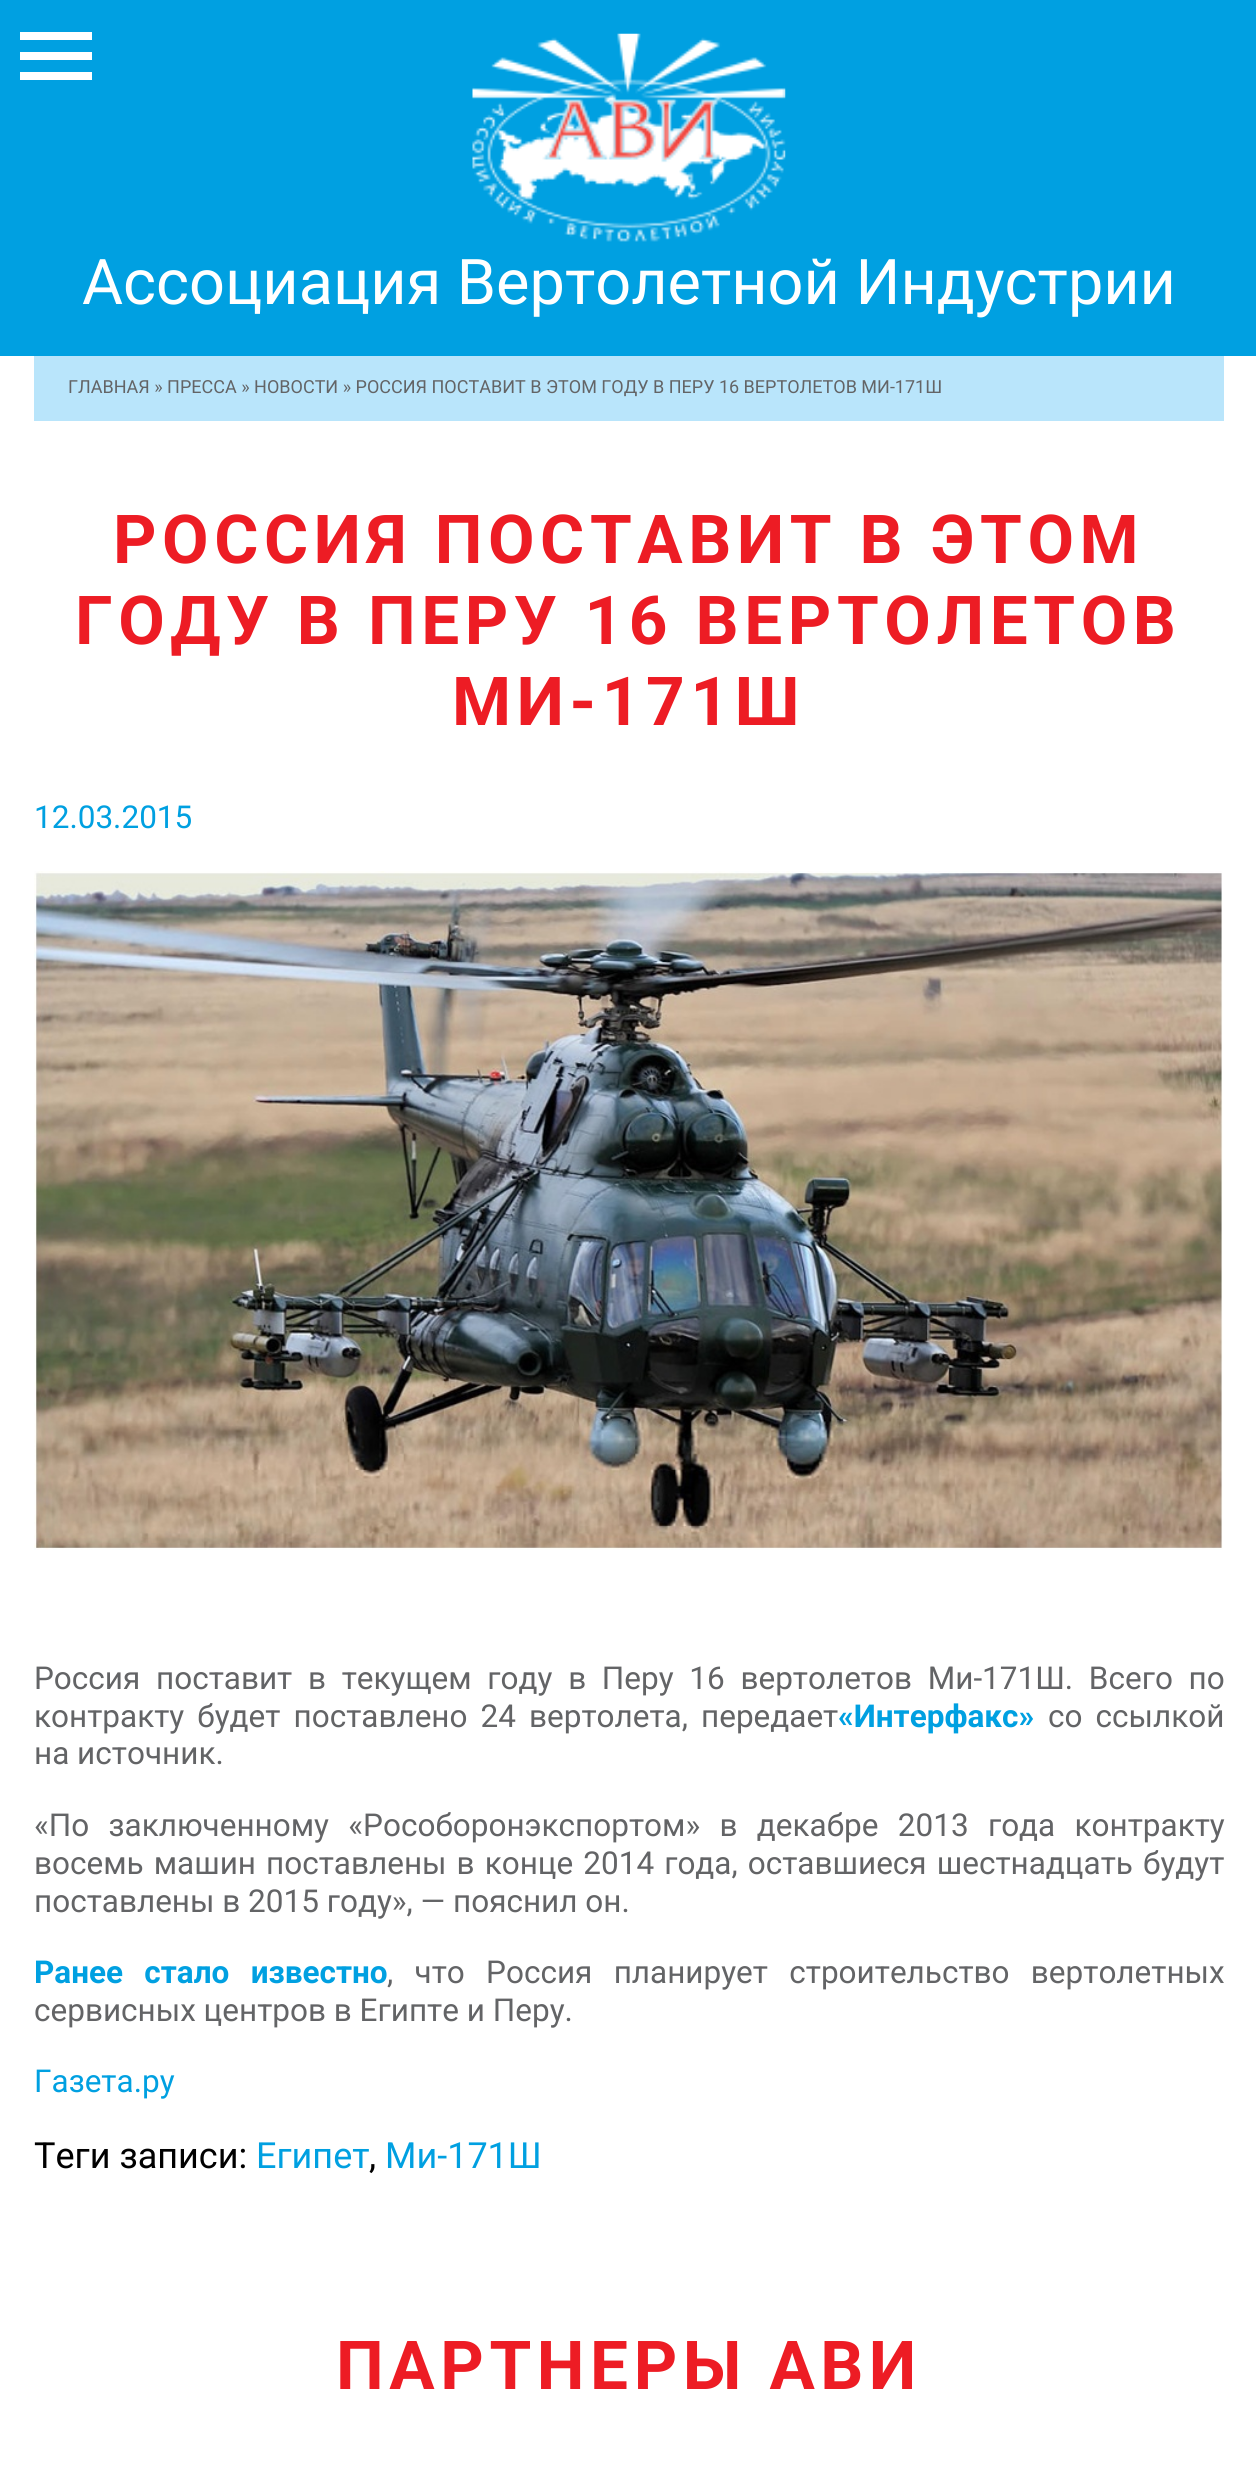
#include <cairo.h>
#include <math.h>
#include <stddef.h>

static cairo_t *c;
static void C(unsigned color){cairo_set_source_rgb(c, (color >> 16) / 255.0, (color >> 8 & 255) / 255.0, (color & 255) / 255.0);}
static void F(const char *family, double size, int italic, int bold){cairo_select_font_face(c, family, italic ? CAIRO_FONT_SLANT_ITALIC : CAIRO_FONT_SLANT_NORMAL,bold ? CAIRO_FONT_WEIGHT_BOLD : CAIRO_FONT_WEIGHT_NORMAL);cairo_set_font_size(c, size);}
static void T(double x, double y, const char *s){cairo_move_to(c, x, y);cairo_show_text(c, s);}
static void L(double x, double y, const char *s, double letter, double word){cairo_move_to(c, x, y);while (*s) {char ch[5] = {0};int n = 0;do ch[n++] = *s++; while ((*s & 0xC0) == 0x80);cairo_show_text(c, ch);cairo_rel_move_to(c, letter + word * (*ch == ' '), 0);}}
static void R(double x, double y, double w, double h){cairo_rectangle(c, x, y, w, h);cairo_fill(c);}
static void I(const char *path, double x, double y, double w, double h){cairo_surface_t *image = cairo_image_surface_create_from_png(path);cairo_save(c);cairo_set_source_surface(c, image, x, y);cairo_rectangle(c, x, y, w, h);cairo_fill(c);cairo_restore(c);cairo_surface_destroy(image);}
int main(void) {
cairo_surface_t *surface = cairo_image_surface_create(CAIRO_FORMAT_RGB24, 1256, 2479);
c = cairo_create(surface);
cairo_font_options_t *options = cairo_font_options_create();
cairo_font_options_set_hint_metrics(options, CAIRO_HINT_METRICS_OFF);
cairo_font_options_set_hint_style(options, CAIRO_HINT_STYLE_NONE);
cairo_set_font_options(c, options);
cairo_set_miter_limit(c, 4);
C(0xffffff);
cairo_paint(c);
C(0x00a0e1);
R(0,0,1256,356);
C(0xffffff);
cairo_new_path(c);
cairo_move_to(c,20,80);
cairo_line_to(c,92,80);
cairo_line_to(c,92,72);
cairo_line_to(c,20,72);
cairo_close_path(c);
cairo_move_to(c,20,60);
cairo_line_to(c,92,60);
cairo_line_to(c,92,52);
cairo_line_to(c,20,52);
cairo_close_path(c);
cairo_move_to(c,20,32);
cairo_line_to(c,20,40);
cairo_line_to(c,92,40);
cairo_line_to(c,92,32);
cairo_close_path(c);
cairo_fill(c);
I("1.png",472,33,314,209);
F("Roboto",63,0,0);
T(82,304,"Ассоциация Вертолетной Индустрии");
C(0xb9e5fb);
R(34,356,1190,65);
F("Roboto",18,0,0);
C(0x636466);
T(68,393,"ГЛАВНАЯ » ПРЕССА » НОВОСТИ » РОССИЯ ПОСТАВИТ В ЭТОМ ГОДУ В ПЕРУ 16 ВЕРТОЛЕТОВ МИ-171Ш");
F("Roboto",67.5,0,1);
C(0xed1c24);
L(113,563,"РОССИЯ ПОСТАВИТ В ЭТОМ",5.6,0);
L(75,644,"ГОДУ В ПЕРУ 16 ВЕРТОЛЕТОВ",5.6,0);
L(452,725,"МИ-171Ш",5.6,0);
F("Roboto",31.5,0,0);
C(0x00a0e1);
T(34,828,"12.03.2015");
I("2.png",34,871,1189,679);
C(0x636466);
L(34,1689,"Россия поставит в текущем году в Перу 16 вертолетов Ми-171Ш. Всего по",0,7.9);
L(34,1727,"контракту будет поставлено 24 вертолета, передает",0,5.25);
F("Roboto",31.5,0,1);
C(0x00a0e1);
T(838,1727,"«Интерфакс»");
F("Roboto",31.5,0,0);
C(0x636466);
L(1048,1727,"со ссылкой",0,5.25);
T(34,1764,"на источник.");
L(34,1836,"«По заключенному «Рособоронэкспортом» в декабре 2013 года контракту",0,11.5);
L(34,1874,"восемь машин поставлены в конце 2014 года, оставшиеся шестнадцать будут",0,2.25);
T(34,1912,"поставлены в 2015 году», — пояснил он.");
F("Roboto",31.5,0,1);
C(0x00a0e1);
L(34,1983,"Ранее стало известно",0,13.5);
F("Roboto",31.5,0,0);
C(0x636466);
L(387,1983,", что Россия планирует строительство вертолетных",0,13.5);
T(34,2021,"сервисных центров в Египте и Перу.");
C(0x00a0e1);
T(34,2092,"Газета.ру");
F("Roboto",36,0,0);
C(0x000000);
T(34,2168,"Теги записи:");
C(0x00a0e1);
T(256,2168,"Египет");
T(385,2168,"Ми-171Ш");
C(0x000000);
T(369,2168,",");
F("Roboto",67.5,0,1);
C(0xed1c24);
L(336,2389,"ПАРТНЕРЫ АВИ",5.6,0);
cairo_surface_write_to_png(surface, "o.png");
cairo_font_options_destroy(options);
cairo_destroy(c);
cairo_surface_destroy(surface);
return 0;
}
